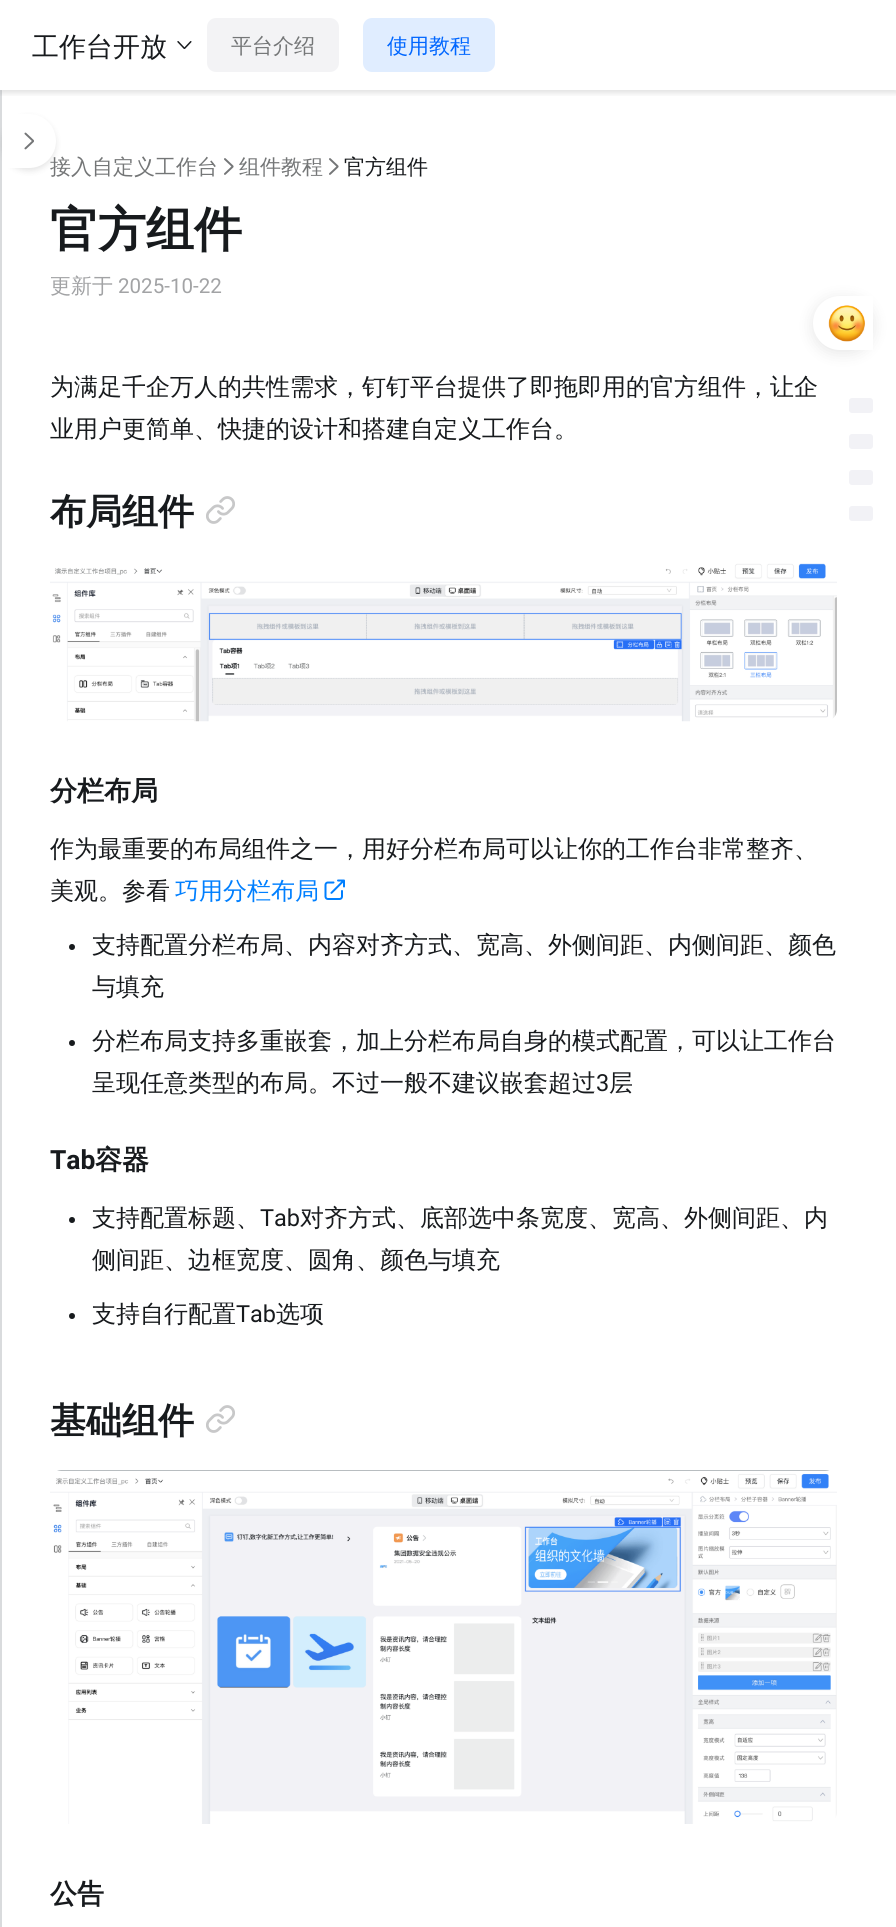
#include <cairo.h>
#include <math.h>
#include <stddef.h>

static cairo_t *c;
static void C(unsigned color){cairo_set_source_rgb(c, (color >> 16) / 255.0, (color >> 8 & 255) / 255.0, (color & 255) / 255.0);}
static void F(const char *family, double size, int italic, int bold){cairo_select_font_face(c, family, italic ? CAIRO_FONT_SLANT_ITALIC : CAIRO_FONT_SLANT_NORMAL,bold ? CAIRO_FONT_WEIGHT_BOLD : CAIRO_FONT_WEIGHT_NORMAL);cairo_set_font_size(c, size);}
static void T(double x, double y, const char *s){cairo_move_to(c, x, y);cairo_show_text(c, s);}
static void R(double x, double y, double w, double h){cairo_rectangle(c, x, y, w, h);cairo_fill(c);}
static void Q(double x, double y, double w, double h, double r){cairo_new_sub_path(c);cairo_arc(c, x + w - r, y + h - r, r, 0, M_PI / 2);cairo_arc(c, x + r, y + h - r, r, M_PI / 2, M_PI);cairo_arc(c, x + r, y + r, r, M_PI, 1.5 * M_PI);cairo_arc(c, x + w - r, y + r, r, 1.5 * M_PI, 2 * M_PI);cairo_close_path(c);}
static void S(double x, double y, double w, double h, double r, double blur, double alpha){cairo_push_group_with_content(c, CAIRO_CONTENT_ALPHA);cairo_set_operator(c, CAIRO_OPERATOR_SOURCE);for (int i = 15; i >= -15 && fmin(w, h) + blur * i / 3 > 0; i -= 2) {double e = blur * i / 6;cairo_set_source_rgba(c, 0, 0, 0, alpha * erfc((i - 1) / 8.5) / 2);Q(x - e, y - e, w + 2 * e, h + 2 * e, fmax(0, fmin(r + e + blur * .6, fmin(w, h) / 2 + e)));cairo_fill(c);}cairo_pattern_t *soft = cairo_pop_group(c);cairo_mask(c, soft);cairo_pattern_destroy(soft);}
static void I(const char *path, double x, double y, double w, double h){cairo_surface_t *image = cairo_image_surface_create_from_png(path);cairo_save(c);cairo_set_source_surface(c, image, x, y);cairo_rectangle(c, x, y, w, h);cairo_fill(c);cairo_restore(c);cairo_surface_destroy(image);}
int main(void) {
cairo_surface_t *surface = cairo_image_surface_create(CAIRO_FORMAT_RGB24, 896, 1927);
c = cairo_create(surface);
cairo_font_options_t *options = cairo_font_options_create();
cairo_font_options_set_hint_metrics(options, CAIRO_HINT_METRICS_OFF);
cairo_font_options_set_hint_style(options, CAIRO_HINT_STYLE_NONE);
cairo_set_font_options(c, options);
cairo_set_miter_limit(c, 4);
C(0xffffff);
cairo_paint(c);
C(0xf6f6f6);
R(0,90,2,1837);
cairo_save(c);
cairo_rectangle(c,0,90,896,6);
cairo_clip(c);
C(0x000000);
S(0,3,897,90,0,3,.12);
cairo_restore(c);
F("WenQuanYi Zen Hei Medium",27,0,0);
C(0x171a1d);
T(32,56,"工作台开放");
I("1.png",177,41,15,8);
C(0xf3f3f5);
Q(207,18,132,54,9);
cairo_fill(c);
F("WenQuanYi Zen Hei Medium",21,0,0);
C(0x747677);
T(231,53,"平台介绍");
C(0xe0edff);
Q(363,18,132,54,9);
cairo_fill(c);
C(0x0066ff);
T(387,53,"使用教程");
cairo_set_source_rgba(c,0.494,0.525,0.557,0.24);
R(0,90,2,1837);
C(0x000000);
S(2,117,54,54,27,3,.1);
C(0x747677);
T(50,174,"接入自定义工作台");
C(0xffffff);
cairo_new_path(c);
cairo_move_to(c,2,114);
cairo_line_to(c,29,114);
cairo_curve_to(c,44,114,56,126,56,141);
cairo_curve_to(c,56,156,44,168,29,168);
cairo_line_to(c,2,168);
cairo_close_path(c);
cairo_fill(c);
I("2.png",24,132,10,18);
I("3.png",224,158,10,17);
C(0x747677);
T(239,174,"组件教程");
I("3.png",329,158,10,17);
C(0x171a1d);
T(344,174,"官方组件");
F("WenQuanYi Zen Hei",48,0,1);
T(50,246,"官方组件");
F("WenQuanYi Zen Hei Medium",21,0,0);
C(0xa2a3a5);
T(50,293,"更新于");
F("Roboto",21,0,0);
T(118,293,"2025-10-22");
F("WenQuanYi Zen Hei Medium",24,0,0);
C(0x171a1d);
T(50,395,"为满足千企万人的共性需求，钉钉平台提供了即拖即用的官方组件，让企");
T(50,437,"业用户更简单、快捷的设计和搭建自定义工作台。");
F("WenQuanYi Zen Hei",36,0,1);
T(50,524,"布局组件");
I("4.png",206,496,29,28);
I("5.png",50,563,787,159);
F("WenQuanYi Zen Hei",27,0,1);
T(50,800,"分栏布局");
F("WenQuanYi Zen Hei Medium",24,0,0);
T(50,857,"作为最重要的布局组件之一，用好分栏布局可以让你的工作台非常整齐、");
T(50,899,"美观。参看");
C(0x007fff);
T(175,899,"巧用分栏布局");
I("6.png",324,879,21,21);
C(0x171a1d);
cairo_arc(c,72,947,3,0,2 * M_PI);
cairo_fill(c);
T(92,953,"支持配置分栏布局、内容对齐方式、宽高、外侧间距、内侧间距、颜色");
T(92,995,"与填充");
cairo_new_path(c);
cairo_arc(c,72,1043,3,0,2 * M_PI);
cairo_fill(c);
T(92,1049,"分栏布局支持多重嵌套，加上分栏布局自身的模式配置，可以让工作台");
T(92,1091,"呈现任意类型的布局。不过一般不建议嵌套超过");
F("Roboto",24,0,0);
T(596,1091,"3");
F("WenQuanYi Zen Hei Medium",24,0,0);
T(609,1091,"层");
F("Roboto",27,0,1);
T(50,1169,"Tab");
F("WenQuanYi Zen Hei",27,0,1);
T(95,1169,"容器");
cairo_new_path(c);
cairo_arc(c,72,1220,3,0,2 * M_PI);
cairo_fill(c);
F("WenQuanYi Zen Hei Medium",24,0,0);
T(92,1226,"支持配置标题、");
F("Roboto",24,0,0);
T(260,1226,"Tab");
F("WenQuanYi Zen Hei Medium",24,0,0);
T(300,1226,"对齐方式、底部选中条宽度、宽高、外侧间距、内");
T(92,1268,"侧间距、边框宽度、圆角、颜色与填充");
cairo_new_path(c);
cairo_arc(c,72,1316,3,0,2 * M_PI);
cairo_fill(c);
T(92,1322,"支持自行配置");
F("Roboto",24,0,0);
T(236,1322,"Tab");
F("WenQuanYi Zen Hei Medium",24,0,0);
T(276,1322,"选项");
F("WenQuanYi Zen Hei",36,0,1);
T(50,1433,"基础组件");
I("4.png",206,1405,29,28);
I("7.png",50,1470,787,354);
F("WenQuanYi Zen Hei",27,0,1);
T(50,1903,"公告");
C(0x000000);
S(813,299,60,54,27,7.5,.1);
C(0xffffff);
cairo_new_path(c);
cairo_move_to(c,840,296);
cairo_line_to(c,873,296);
cairo_line_to(c,873,350);
cairo_line_to(c,840,350);
cairo_curve_to(c,825,350,813,338,813,323);
cairo_curve_to(c,813,308,825,296,840,296);
cairo_close_path(c);
cairo_fill(c);
I("8.png",828,305,37,37);
C(0xf2f2f6);
Q(849,398,24,15,3);
cairo_fill(c);
Q(849,434,24,15,3);
cairo_fill(c);
Q(849,470,24,15,3);
cairo_fill(c);
Q(849,506,24,15,3);
cairo_fill(c);
cairo_surface_write_to_png(surface, "o.png");
cairo_font_options_destroy(options);
cairo_destroy(c);
cairo_surface_destroy(surface);
return 0;
}
